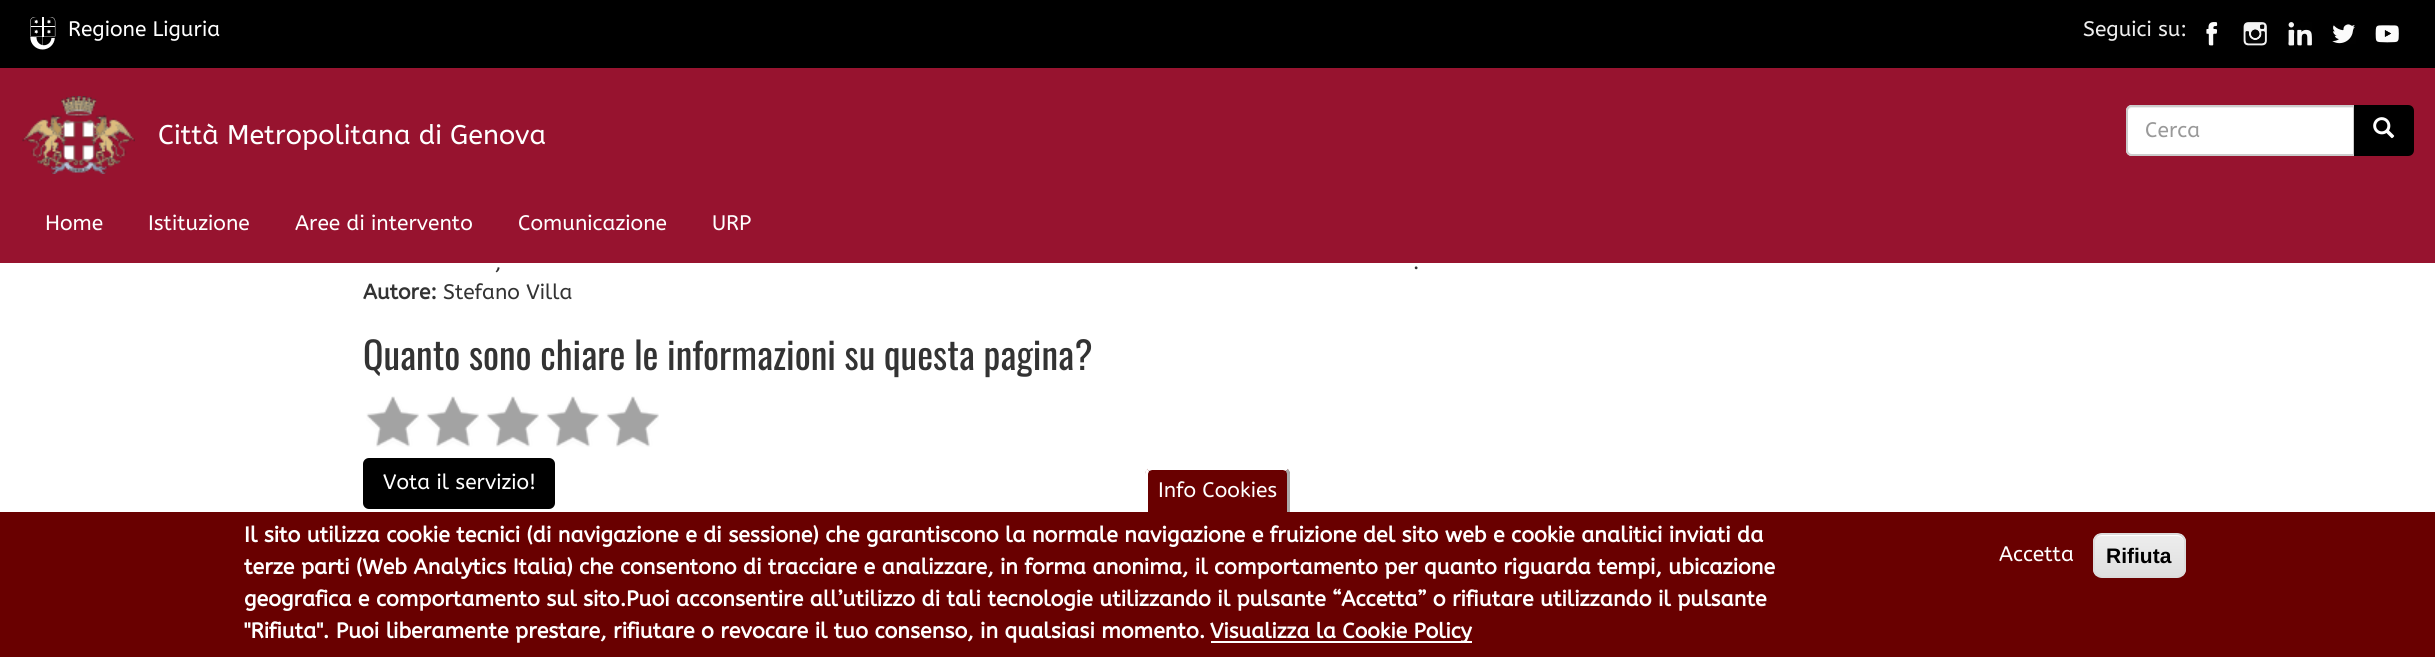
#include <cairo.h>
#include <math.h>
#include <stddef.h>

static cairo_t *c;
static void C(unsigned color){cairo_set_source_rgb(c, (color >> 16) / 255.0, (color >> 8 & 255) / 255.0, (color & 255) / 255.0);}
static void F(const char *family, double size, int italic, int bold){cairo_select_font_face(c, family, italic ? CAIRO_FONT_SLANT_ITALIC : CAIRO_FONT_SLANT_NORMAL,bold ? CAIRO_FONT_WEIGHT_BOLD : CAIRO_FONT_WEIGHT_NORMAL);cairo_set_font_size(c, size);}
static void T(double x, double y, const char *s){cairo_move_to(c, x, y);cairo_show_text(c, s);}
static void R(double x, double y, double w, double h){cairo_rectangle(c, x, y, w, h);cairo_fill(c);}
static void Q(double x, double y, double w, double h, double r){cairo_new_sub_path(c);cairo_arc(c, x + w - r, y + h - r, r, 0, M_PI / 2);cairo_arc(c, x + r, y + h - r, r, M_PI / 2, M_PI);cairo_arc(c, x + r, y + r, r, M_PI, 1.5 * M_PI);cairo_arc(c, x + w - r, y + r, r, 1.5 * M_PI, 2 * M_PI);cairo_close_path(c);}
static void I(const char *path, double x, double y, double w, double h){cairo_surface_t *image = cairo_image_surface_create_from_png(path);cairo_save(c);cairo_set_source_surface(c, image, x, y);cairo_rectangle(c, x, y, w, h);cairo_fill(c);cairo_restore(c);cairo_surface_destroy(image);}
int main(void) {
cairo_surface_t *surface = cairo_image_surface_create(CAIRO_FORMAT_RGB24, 2435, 657);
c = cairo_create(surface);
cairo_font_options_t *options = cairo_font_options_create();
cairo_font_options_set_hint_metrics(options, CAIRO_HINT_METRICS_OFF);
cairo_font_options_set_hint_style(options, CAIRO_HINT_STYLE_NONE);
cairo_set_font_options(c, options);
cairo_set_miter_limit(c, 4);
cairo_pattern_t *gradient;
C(0xffffff);
cairo_paint(c);
C(0x97132f);
R(0,68,2435,195);
C(0x000000);
R(0,0,2435,68);
I("1.png",30,17,26,33);
F("abeezee",21,0,0);
C(0xffffff);
T(68,36,"Regione Liguria");
C(0xeeeeee);
T(2083,36,"Seguici su:");
I("2.png",2206,22,12,24);
I("3.png",2243,22,24,24);
I("4.png",2288,22,24,24);
I("5.png",2332,24,24,20);
I("6.png",2375,25,24,18);
I("7.png",22,96,113,78);
F("abeezee",27,0,0);
C(0xffffff);
T(158,144,"Città Metropolitana di Genova");
cairo_new_path(c);
cairo_move_to(c,2132,105);
cairo_line_to(c,2355,105);
cairo_line_to(c,2355,156);
cairo_line_to(c,2132,156);
cairo_curve_to(c,2128.5,156,2126,153.5,2126,150);
cairo_line_to(c,2126,111);
cairo_curve_to(c,2126,107.5,2128.5,105,2132,105);
cairo_close_path(c);
cairo_fill(c);
C(0xececec);
cairo_new_path(c);
cairo_move_to(c,2132,108);
cairo_line_to(c,2354,108);
cairo_line_to(c,2354,107);
cairo_line_to(c,2132,107);
cairo_curve_to(c,2129,107,2127,109,2127,112);
cairo_curve_to(c,2127,110,2129,108,2132,108);
cairo_close_path(c);
cairo_fill(c);
cairo_new_path(c);
cairo_move_to(c,2132,106);
cairo_line_to(c,2354,106);
cairo_line_to(c,2354,155);
cairo_line_to(c,2132,155);
cairo_curve_to(c,2129,155,2127,153,2127,150);
cairo_line_to(c,2127,111);
cairo_curve_to(c,2127,108,2129,106,2132,106);
cairo_close_path(c);
C(0xcccccc);
cairo_stroke(c);
F("abeezee",21,0,0);
C(0x999999);
T(2145,137,"Cerca");
C(0x000000);
cairo_new_path(c);
cairo_move_to(c,2355,106);
cairo_line_to(c,2408,106);
cairo_curve_to(c,2411,106,2413,108,2413,111);
cairo_line_to(c,2413,150);
cairo_curve_to(c,2413,153,2411,155,2408,155);
cairo_line_to(c,2355,155);
cairo_close_path(c);
cairo_fill_preserve(c);
cairo_stroke(c);
I("8.png",2373,117,22,22);
C(0xffffff);
T(45,230,"Home");
T(148,230,"Istituzione");
T(295,230,"Aree di intervento");
T(518,230,"Comunicazione");
T(712,230,"URP");
C(0x333333);
T(495,269,",");
T(1413,269,".");
F("abeezee",21,0,1);
T(363,299,"Autore:");
F("abeezee",21,0,0);
T(443,299,"Stefano Villa");
F("Oswald",37.75,0,0);
T(363,370,"Quanto sono chiare le informazioni su questa pagina?");
I("9.png",366,396,293,51);
C(0x000000);
Q(364,459,190,49,5);
cairo_fill_preserve(c);
cairo_stroke(c);
F("abeezee",21,0,0);
C(0xffffff);
T(383,489,"Vota il servizio!");
C(0x690000);
R(0,512,2435,145);
cairo_new_path(c);
cairo_move_to(c,1153,467);
cairo_line_to(c,1282,467);
cairo_curve_to(c,1286.5,467,1290,470.5,1290,475);
cairo_line_to(c,1290,512);
cairo_line_to(c,1145,512);
cairo_line_to(c,1145,475);
cairo_curve_to(c,1145,470.5,1148.5,467,1153,467);
cairo_close_path(c);
cairo_fill(c);
C(0xffffff);
cairo_new_path(c);
cairo_move_to(c,1152,470);
cairo_line_to(c,1149,471);
cairo_line_to(c,1147,469);
cairo_line_to(c,1150,466);
cairo_line_to(c,1285,466);
cairo_line_to(c,1288,469);
cairo_line_to(c,1286,471);
cairo_line_to(c,1283,470);
cairo_close_path(c);
cairo_fill(c);
C(0xaaaaaa);
cairo_new_path(c);
cairo_move_to(c,1287,512);
cairo_line_to(c,1287,474);
cairo_curve_to(c,1287,473,1286,472,1286,471);
cairo_line_to(c,1288,469);
cairo_curve_to(c,1289,470,1290,472,1290,474);
cairo_line_to(c,1290,512);
cairo_close_path(c);
cairo_fill(c);
C(0xffffff);
cairo_new_path(c);
cairo_move_to(c,1145,512);
cairo_line_to(c,1145,474);
cairo_curve_to(c,1145,472,1146,470,1147,469);
cairo_line_to(c,1149,471);
cairo_curve_to(c,1149,472,1148,473,1148,474);
cairo_line_to(c,1148,512);
cairo_close_path(c);
cairo_fill(c);
T(1158,497,"Info Cookies");
F("abeezee",21.42,0,1);
T(244,542,"Il sito utilizza cookie tecnici (di navigazione e di sessione) che garantiscono la normale navigazione e fruizione del sito web e cookie analitici inviati da");
T(244,574,"terze parti (Web Analytics Italia) che consentono di tracciare e analizzare, in forma anonima, il comportamento per quanto riguarda tempi, ubicazione");
T(244,606,"geografica e comportamento sul sito.Puoi acconsentire all’utilizzo di tali tecnologie utilizzando il pulsante “Accetta” o rifiutare utilizzando il pulsante");
T(244,638,"\"Rifiuta\". Puoi liberamente prestare, rifiutare o revocare il tuo consenso, in qualsiasi momento.");
R(1211,641,261,2);
F("abeezee",21,0,1);
T(1210,638,"Visualizza la Cookie Policy");
F("abeezee",21,0,0);
T(1999,561,"Accetta");
cairo_save(c);
Q(2093,533,93,45,9);
cairo_clip(c);
gradient = cairo_pattern_create_linear(2139,534,2139,576);
cairo_pattern_add_color_stop_rgba(gradient,.05,0.929,0.929,0.929,1);
cairo_pattern_add_color_stop_rgba(gradient,1,0.875,0.875,0.875,1);
cairo_set_source(c,gradient);
cairo_pattern_destroy(gradient);
R(2093,534,93,42);
cairo_restore(c);
cairo_new_path(c);
cairo_move_to(c,2102,536);
cairo_line_to(c,2176,536);
cairo_curve_to(c,2181,536,2184,539,2184,543);
cairo_curve_to(c,2184,531,2172,534,2164,534);
cairo_line_to(c,2114,534);
cairo_curve_to(c,2106,534,2094,531,2094,543);
cairo_curve_to(c,2094,539,2097,536,2102,536);
cairo_close_path(c);
cairo_fill(c);
Q(2094,534,91,43,8);
C(0xdcdcdc);
cairo_stroke(c);
F("Liberation Sans",21,0,1);
C(0x000000);
T(2106,563,"Rifiuta");
cairo_surface_write_to_png(surface, "o.png");
cairo_font_options_destroy(options);
cairo_destroy(c);
cairo_surface_destroy(surface);
return 0;
}
